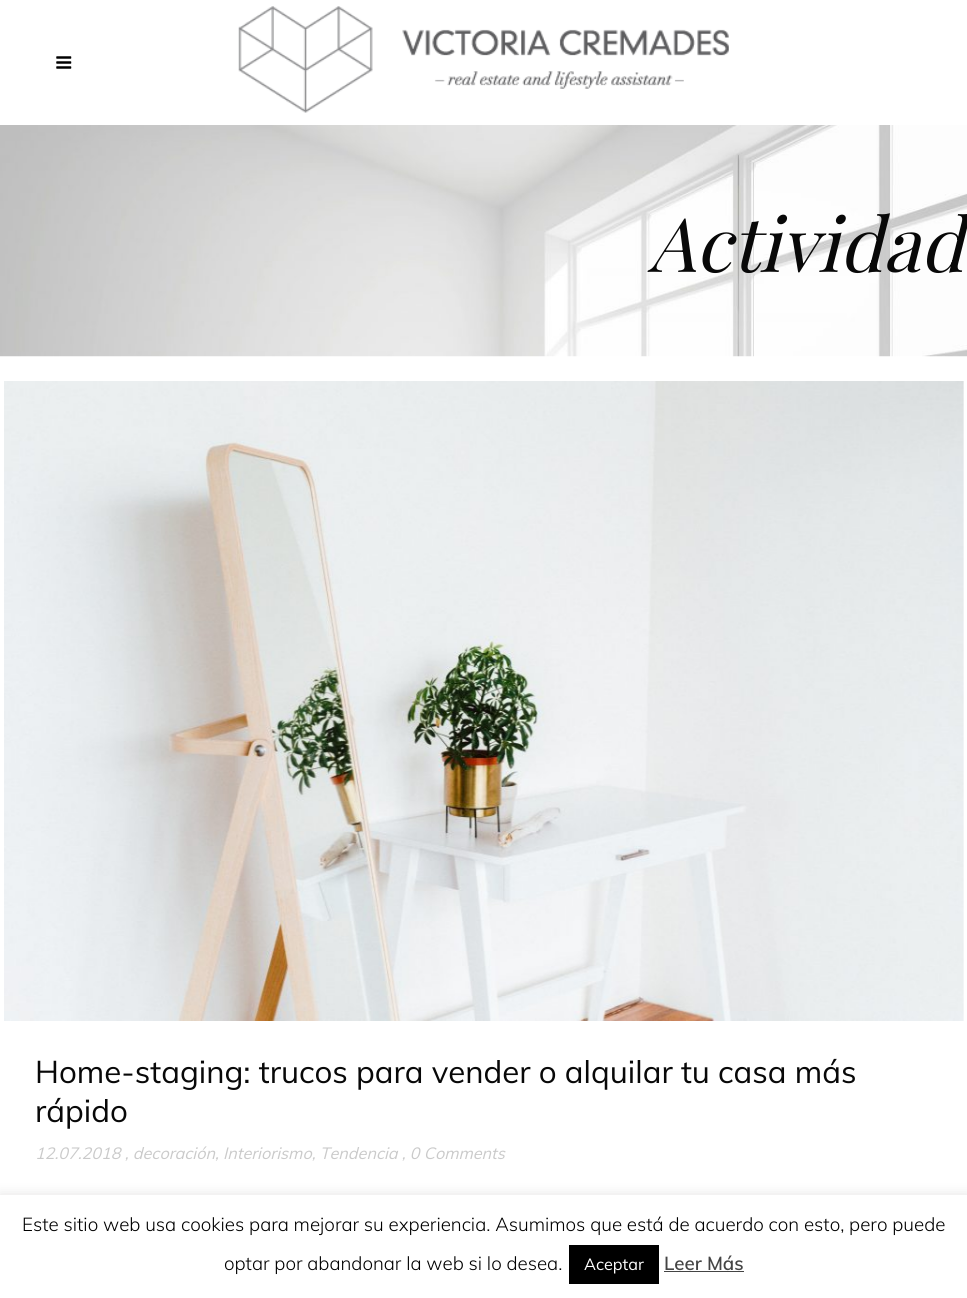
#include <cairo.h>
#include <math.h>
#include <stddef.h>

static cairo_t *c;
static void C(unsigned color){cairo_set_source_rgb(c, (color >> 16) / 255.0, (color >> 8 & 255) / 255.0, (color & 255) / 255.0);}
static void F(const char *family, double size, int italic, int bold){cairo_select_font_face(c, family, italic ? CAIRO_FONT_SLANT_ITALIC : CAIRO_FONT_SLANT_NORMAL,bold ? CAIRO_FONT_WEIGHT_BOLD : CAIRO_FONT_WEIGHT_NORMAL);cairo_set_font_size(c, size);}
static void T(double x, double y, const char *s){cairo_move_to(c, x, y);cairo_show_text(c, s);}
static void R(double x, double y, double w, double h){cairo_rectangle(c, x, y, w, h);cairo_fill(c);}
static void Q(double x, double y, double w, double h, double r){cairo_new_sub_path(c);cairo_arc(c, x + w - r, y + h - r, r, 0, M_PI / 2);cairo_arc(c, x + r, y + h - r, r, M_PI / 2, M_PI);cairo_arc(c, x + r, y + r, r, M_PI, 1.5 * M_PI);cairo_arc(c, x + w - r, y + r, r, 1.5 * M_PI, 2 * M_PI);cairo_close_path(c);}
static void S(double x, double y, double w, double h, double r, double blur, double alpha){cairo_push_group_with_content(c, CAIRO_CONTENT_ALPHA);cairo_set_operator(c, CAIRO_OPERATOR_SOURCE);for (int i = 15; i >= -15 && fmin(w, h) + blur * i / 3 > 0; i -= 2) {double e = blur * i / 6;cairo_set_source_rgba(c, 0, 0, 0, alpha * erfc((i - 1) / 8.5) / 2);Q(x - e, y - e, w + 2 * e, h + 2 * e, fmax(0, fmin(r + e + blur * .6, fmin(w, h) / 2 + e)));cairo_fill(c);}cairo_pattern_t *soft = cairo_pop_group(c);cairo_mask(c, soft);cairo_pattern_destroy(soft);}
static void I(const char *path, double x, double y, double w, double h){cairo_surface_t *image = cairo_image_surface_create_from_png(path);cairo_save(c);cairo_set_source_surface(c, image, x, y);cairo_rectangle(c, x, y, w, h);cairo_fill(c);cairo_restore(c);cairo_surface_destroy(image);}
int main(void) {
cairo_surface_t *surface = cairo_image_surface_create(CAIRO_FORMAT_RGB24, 967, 1298);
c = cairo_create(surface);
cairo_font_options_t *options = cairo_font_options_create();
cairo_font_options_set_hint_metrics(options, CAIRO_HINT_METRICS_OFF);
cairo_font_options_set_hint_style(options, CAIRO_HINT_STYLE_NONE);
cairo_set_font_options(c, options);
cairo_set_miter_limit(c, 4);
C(0xffffff);
cairo_paint(c);
I("1.png",56,56,16,13);
I("2.png",238,6,491,107);
I("3.png",0,125,967,232);
F("Playfair Display",75,1,0);
C(0x080808);
T(648,272,"Actividad");
I("4.png",4,381,960,640);
F("Muli",31.25,0,0);
T(35,1083,"Home-staging: trucos para vender o alquilar tu casa más");
T(35,1122,"rápido");
F("Muli",16.25,1,0);
C(0xcacaca);
T(35,1159,"12.07.2018 , decoración, Interiorismo, Tendencia , 0 Comments");
C(0xacabab);
S(0,1194,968,104,0,6,.3);
C(0xffffff);
R(0,1195,967,103);
F("Muli Light",18.75,0,0);
C(0x000000);
T(22,1231,"Este sitio web usa cookies para mejorar su experiencia. Asumimos que está de acuerdo con esto, pero puede");
T(224,1270,"optar por abandonar la web si lo desea.");
R(569,1245,90,39);
F("Muli",16.25,0,0);
C(0xffffff);
T(584,1270,"Aceptar");
F("Muli SemiBold",18.75,0,0);
C(0x444444);
T(664,1270,"Leer Más");
R(664,1271,80,1);
cairo_surface_write_to_png(surface, "o.png");
cairo_font_options_destroy(options);
cairo_destroy(c);
cairo_surface_destroy(surface);
return 0;
}
